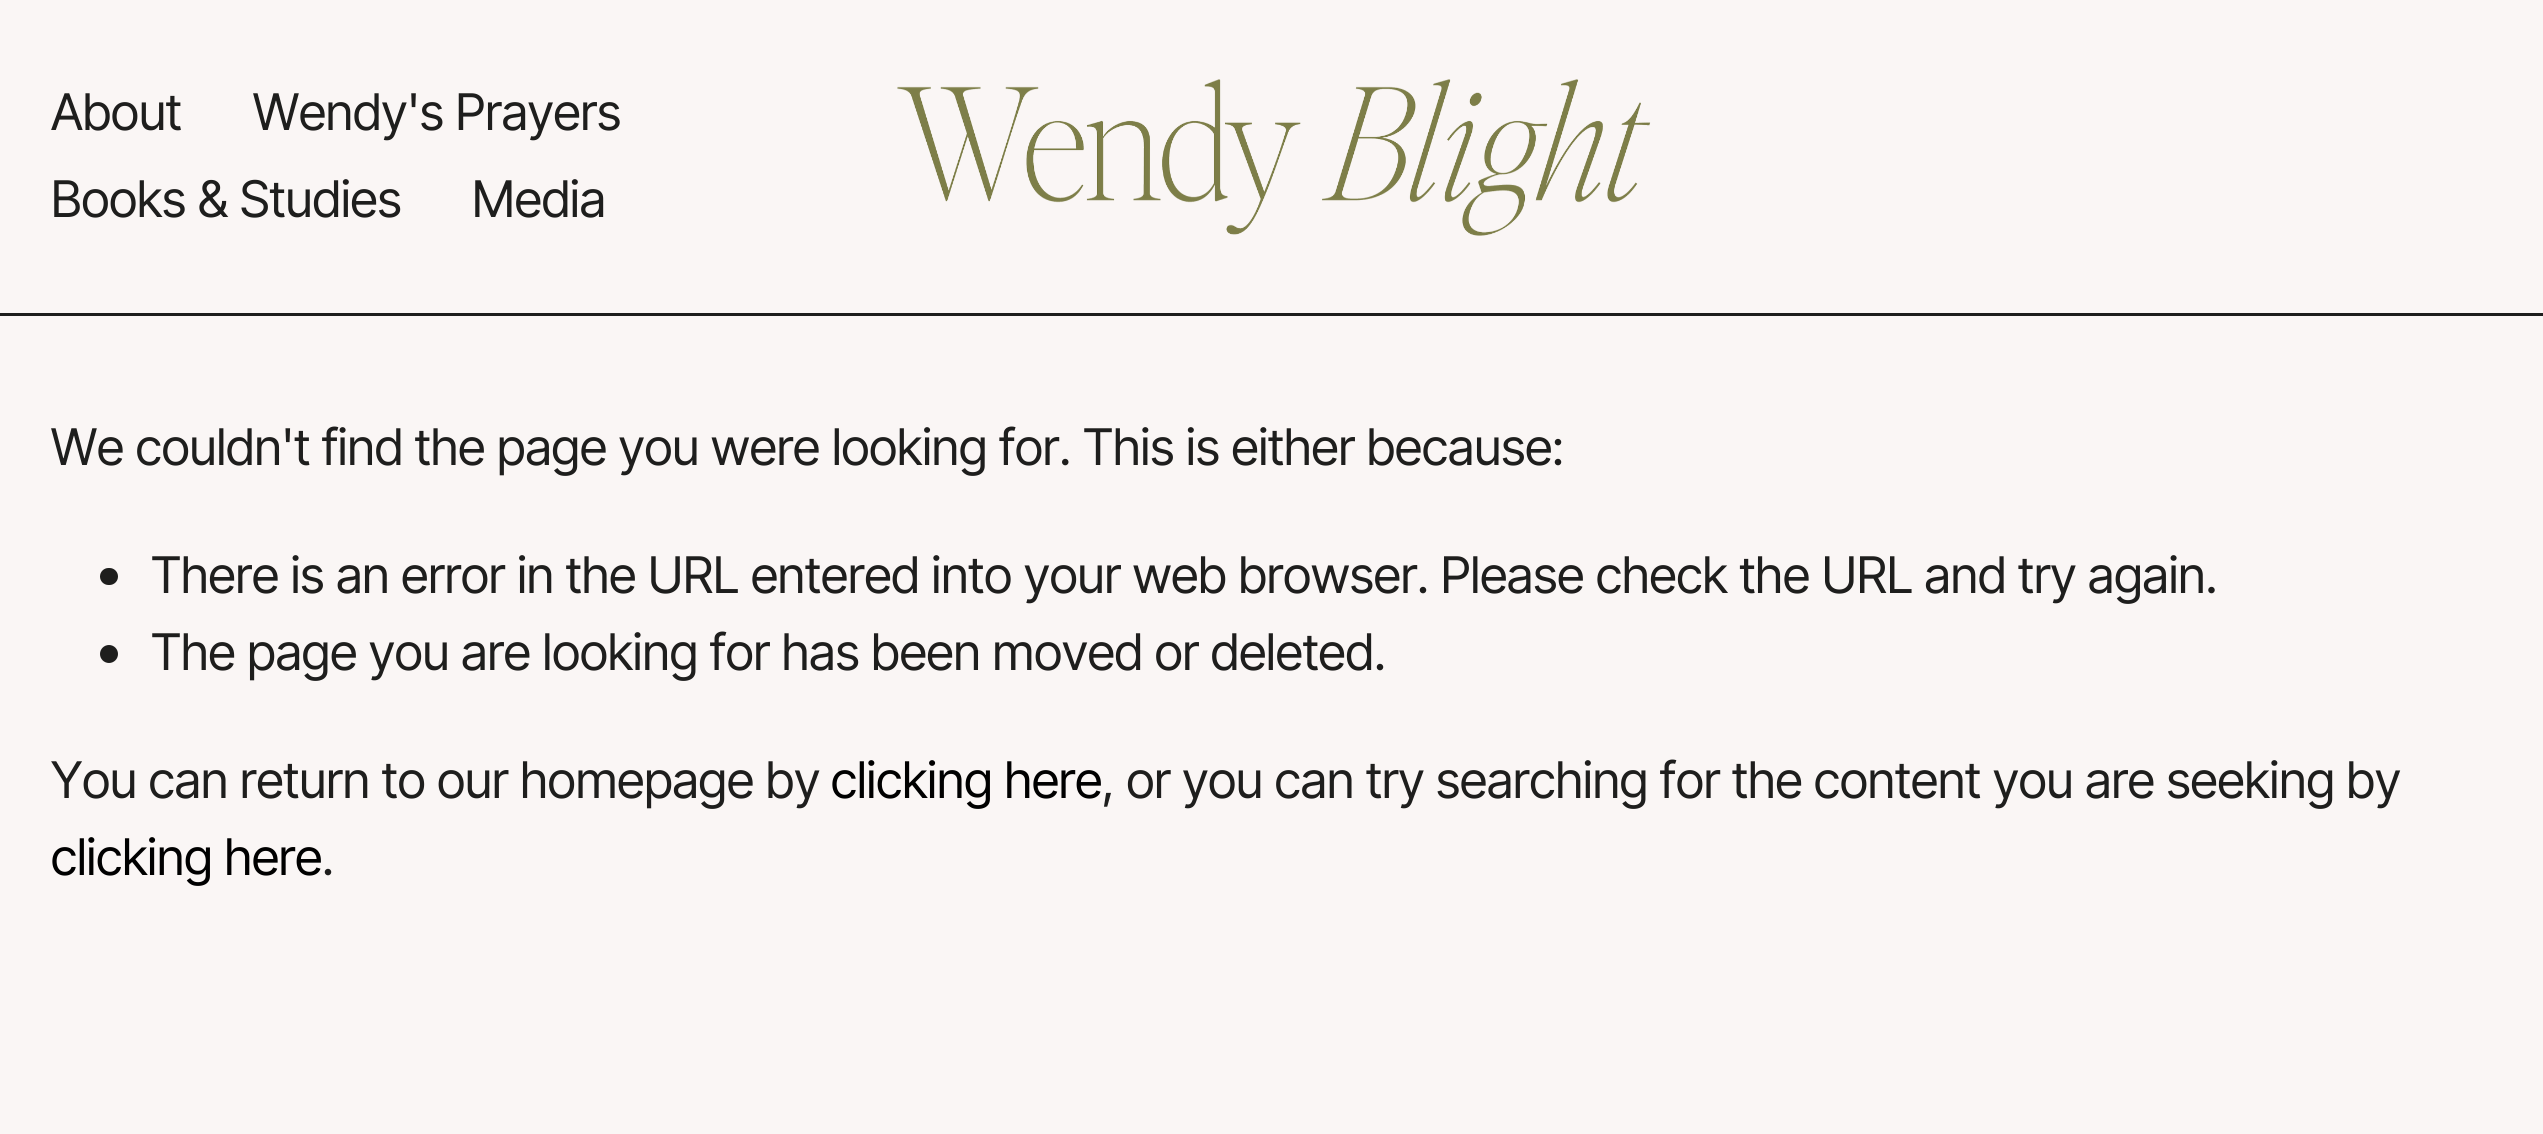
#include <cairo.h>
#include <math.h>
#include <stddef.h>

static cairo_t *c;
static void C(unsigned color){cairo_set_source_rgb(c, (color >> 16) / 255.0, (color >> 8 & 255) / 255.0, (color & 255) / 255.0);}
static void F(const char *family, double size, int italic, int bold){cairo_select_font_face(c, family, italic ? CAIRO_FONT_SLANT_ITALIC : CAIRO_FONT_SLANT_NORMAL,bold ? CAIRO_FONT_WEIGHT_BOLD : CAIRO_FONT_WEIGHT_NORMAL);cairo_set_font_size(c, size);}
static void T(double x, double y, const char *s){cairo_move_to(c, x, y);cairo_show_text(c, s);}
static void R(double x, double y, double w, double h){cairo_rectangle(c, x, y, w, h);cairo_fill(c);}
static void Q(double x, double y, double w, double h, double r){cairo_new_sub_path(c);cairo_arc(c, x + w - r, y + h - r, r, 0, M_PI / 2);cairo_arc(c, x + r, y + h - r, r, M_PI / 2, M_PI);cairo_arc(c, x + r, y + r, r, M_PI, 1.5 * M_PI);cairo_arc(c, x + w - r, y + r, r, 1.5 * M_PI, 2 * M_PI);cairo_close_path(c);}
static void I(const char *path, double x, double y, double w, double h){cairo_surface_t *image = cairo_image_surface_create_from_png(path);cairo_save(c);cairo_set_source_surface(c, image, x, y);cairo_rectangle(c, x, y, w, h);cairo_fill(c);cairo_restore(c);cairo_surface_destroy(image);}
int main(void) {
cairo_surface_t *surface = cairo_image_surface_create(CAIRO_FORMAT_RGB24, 2543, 1134);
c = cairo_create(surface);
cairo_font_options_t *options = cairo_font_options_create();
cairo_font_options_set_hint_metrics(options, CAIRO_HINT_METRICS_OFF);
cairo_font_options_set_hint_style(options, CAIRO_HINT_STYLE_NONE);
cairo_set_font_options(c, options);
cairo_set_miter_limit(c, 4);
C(0xfaf6f5);
cairo_paint(c);
F("Inter Tight",50.5,0,0);
C(0x1e1e1d);
T(51,130,"About");
T(253,130,"Wendy's Prayers");
T(51,217,"Books & Studies");
T(472,217,"Media");
I("1.png",897,79,754,157);
R(0,313,2543,3);
T(51,465,"We couldn't find the page you were looking for. This is either because:");
Q(100,568,18,17,8.5);
cairo_fill(c);
T(151,593,"There is an error in the URL entered into your web browser. Please check the URL and try again.");
cairo_new_path(c);
cairo_arc(c,109,654,9,0,2 * M_PI);
cairo_fill(c);
T(151,670,"The page you are looking for has been moved or deleted.");
T(51,798,"You can return to our homepage by");
C(0x000000);
T(831,798,"clicking here");
C(0x1e1e1d);
T(1102,798,", or you can try searching for the");
T(1814,798,"content you are seeking by");
C(0x000000);
T(51,875,"clicking here");
C(0x1e1e1d);
T(322,875,".");
cairo_surface_write_to_png(surface, "o.png");
cairo_font_options_destroy(options);
cairo_destroy(c);
cairo_surface_destroy(surface);
return 0;
}
